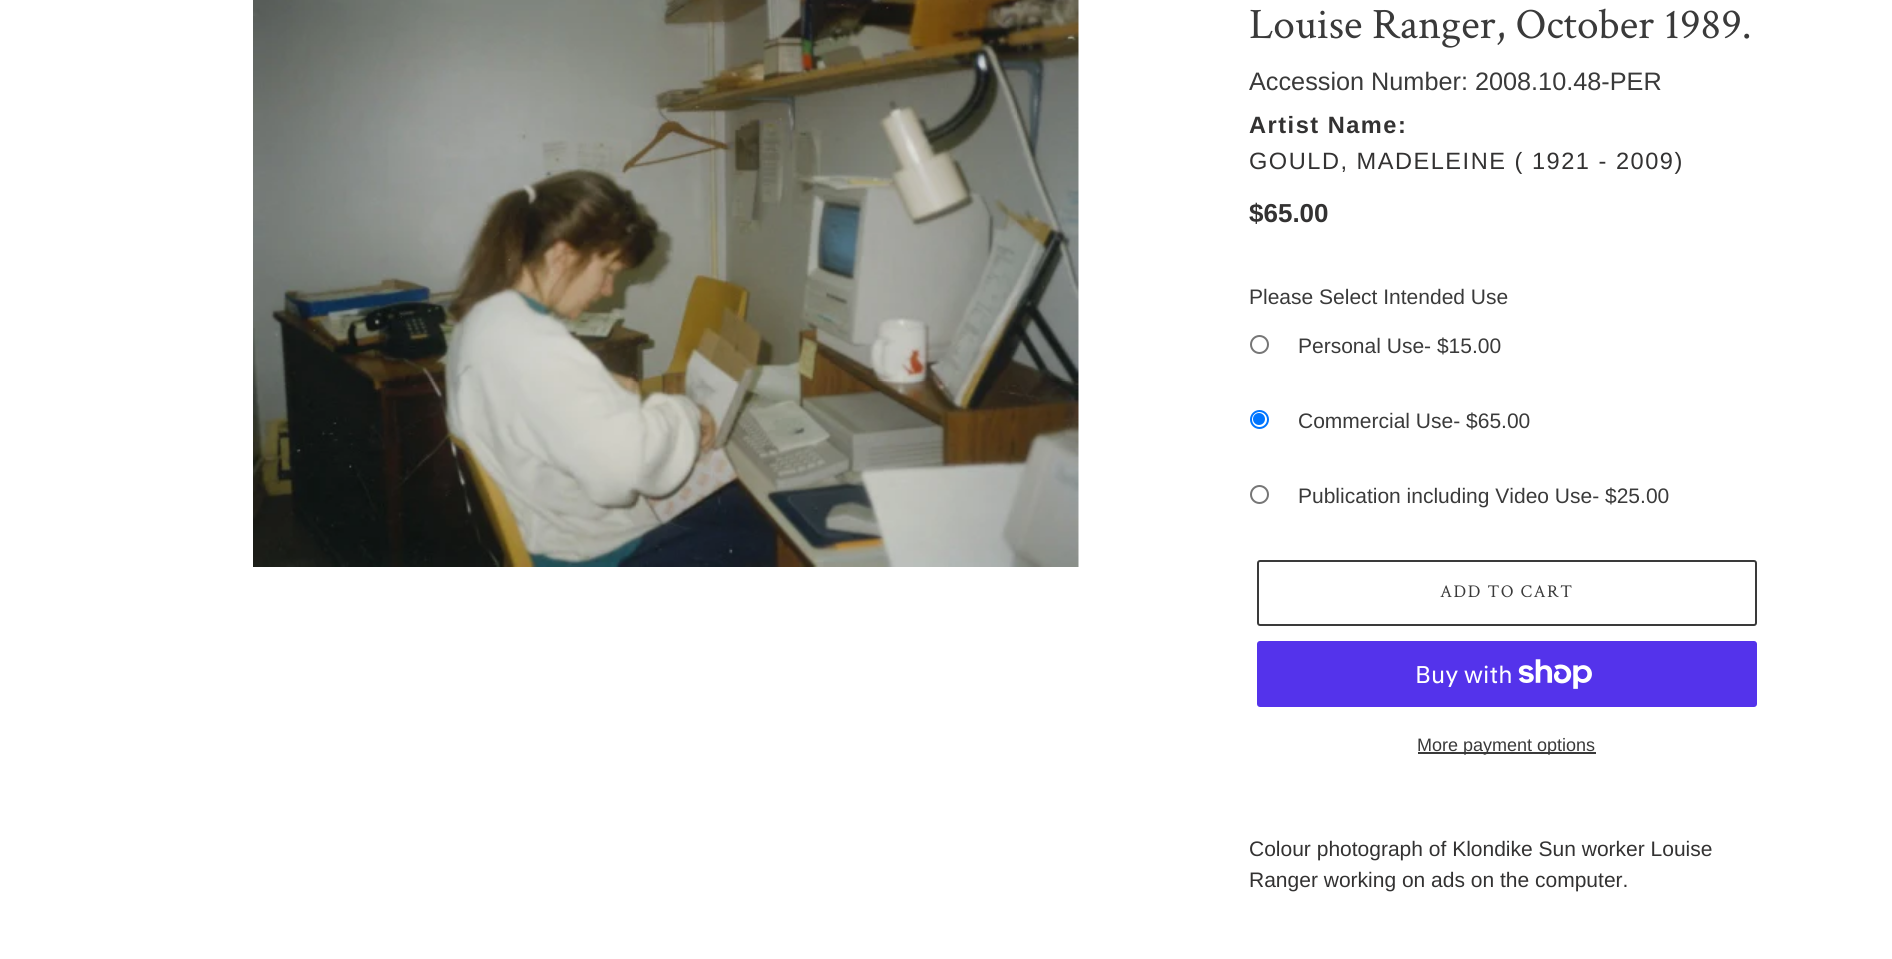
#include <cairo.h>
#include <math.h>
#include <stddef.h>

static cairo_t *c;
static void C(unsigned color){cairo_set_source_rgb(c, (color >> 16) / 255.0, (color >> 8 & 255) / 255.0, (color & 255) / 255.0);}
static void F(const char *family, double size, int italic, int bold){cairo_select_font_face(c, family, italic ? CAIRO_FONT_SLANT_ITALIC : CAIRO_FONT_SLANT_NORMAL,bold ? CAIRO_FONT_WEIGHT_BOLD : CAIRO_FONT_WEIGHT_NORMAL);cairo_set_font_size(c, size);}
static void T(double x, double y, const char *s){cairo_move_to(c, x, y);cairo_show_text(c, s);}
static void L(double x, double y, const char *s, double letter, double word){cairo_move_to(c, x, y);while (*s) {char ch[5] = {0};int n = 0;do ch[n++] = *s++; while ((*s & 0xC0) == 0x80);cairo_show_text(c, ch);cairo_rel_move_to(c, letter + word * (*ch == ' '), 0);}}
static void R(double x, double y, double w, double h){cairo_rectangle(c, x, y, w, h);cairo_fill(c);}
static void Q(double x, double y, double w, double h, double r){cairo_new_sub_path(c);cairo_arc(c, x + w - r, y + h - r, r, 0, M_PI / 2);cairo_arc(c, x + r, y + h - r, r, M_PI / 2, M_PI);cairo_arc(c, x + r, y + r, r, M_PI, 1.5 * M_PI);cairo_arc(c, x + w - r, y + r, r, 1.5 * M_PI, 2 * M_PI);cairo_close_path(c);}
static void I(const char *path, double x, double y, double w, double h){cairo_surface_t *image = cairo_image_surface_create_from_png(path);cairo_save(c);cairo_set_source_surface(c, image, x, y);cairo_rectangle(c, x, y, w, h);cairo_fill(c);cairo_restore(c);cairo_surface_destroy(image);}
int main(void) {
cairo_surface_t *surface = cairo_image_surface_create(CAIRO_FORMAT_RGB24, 1892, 959);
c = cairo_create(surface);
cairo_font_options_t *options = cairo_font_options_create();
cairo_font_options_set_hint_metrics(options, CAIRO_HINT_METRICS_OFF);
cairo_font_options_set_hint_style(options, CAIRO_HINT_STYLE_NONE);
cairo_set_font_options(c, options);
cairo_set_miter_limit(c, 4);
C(0xffffff);
cairo_paint(c);
I("1.png",253,0,826,567);
F("Crimson Text",43.5,0,0);
C(0x3a3a3a);
T(1249,38,"Louise Ranger, October 1989.");
F("Liberation Sans",25.25,0,0);
T(1249,90,"Accession Number: 2008.10.48-PER");
F("Liberation Sans",23.6,0,1);
C(0x333232);
L(1249,133,"Artist Name:",1.5,0);
F("Liberation Sans",23.6,0,0);
L(1249,169,"GOULD, MADELEINE ( 1921 - 2009)",1.5,0);
F("Liberation Sans",26,0,1);
T(1249,222,"$65.00");
F("Liberation Sans",21,0,0);
C(0x3a3a3a);
T(1249,304,"Please Select Intended Use");
cairo_new_path(c);
cairo_arc(c,1259.5,344.5,8.5,0,2 * M_PI);
C(0x767676);
cairo_stroke(c);
C(0x3a3a3a);
T(1298,353,"Personal Use- $15.00");
cairo_new_path(c);
cairo_arc(c,1259.5,419.5,8.5,0,2 * M_PI);
C(0x0075ff);
cairo_stroke(c);
cairo_arc(c,1259,419,6,0,2 * M_PI);
cairo_fill(c);
C(0x3a3a3a);
T(1298,428,"Commercial Use- $65.00");
cairo_new_path(c);
cairo_arc(c,1259.5,494.5,8.5,0,2 * M_PI);
C(0x767676);
cairo_stroke(c);
C(0x3a3a3a);
T(1298,503,"Publication including Video Use- $25.00");
Q(1258,561,498,64,2);
cairo_stroke(c);
F("Crimson Text",18,0,0);
L(1440,597,"ADD TO CART",1.5,0);
C(0x5433eb);
Q(1257,641,500,66,3);
cairo_fill(c);
F("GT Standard",24,0,0);
C(0xffffff);
T(1415,683,"Buy with");
I("2.png",1518,659,74,30);
C(0x3a3a3a);
R(1418,752,178,2);
F("Liberation Sans",18,0,0);
T(1417,751,"More payment options");
F("Liberation Sans",21,0,0);
C(0x333232);
T(1249,856,"Colour photograph of Klondike Sun worker Louise");
T(1249,887,"Ranger working on ads on the computer.");
cairo_surface_write_to_png(surface, "o.png");
cairo_font_options_destroy(options);
cairo_destroy(c);
cairo_surface_destroy(surface);
return 0;
}
